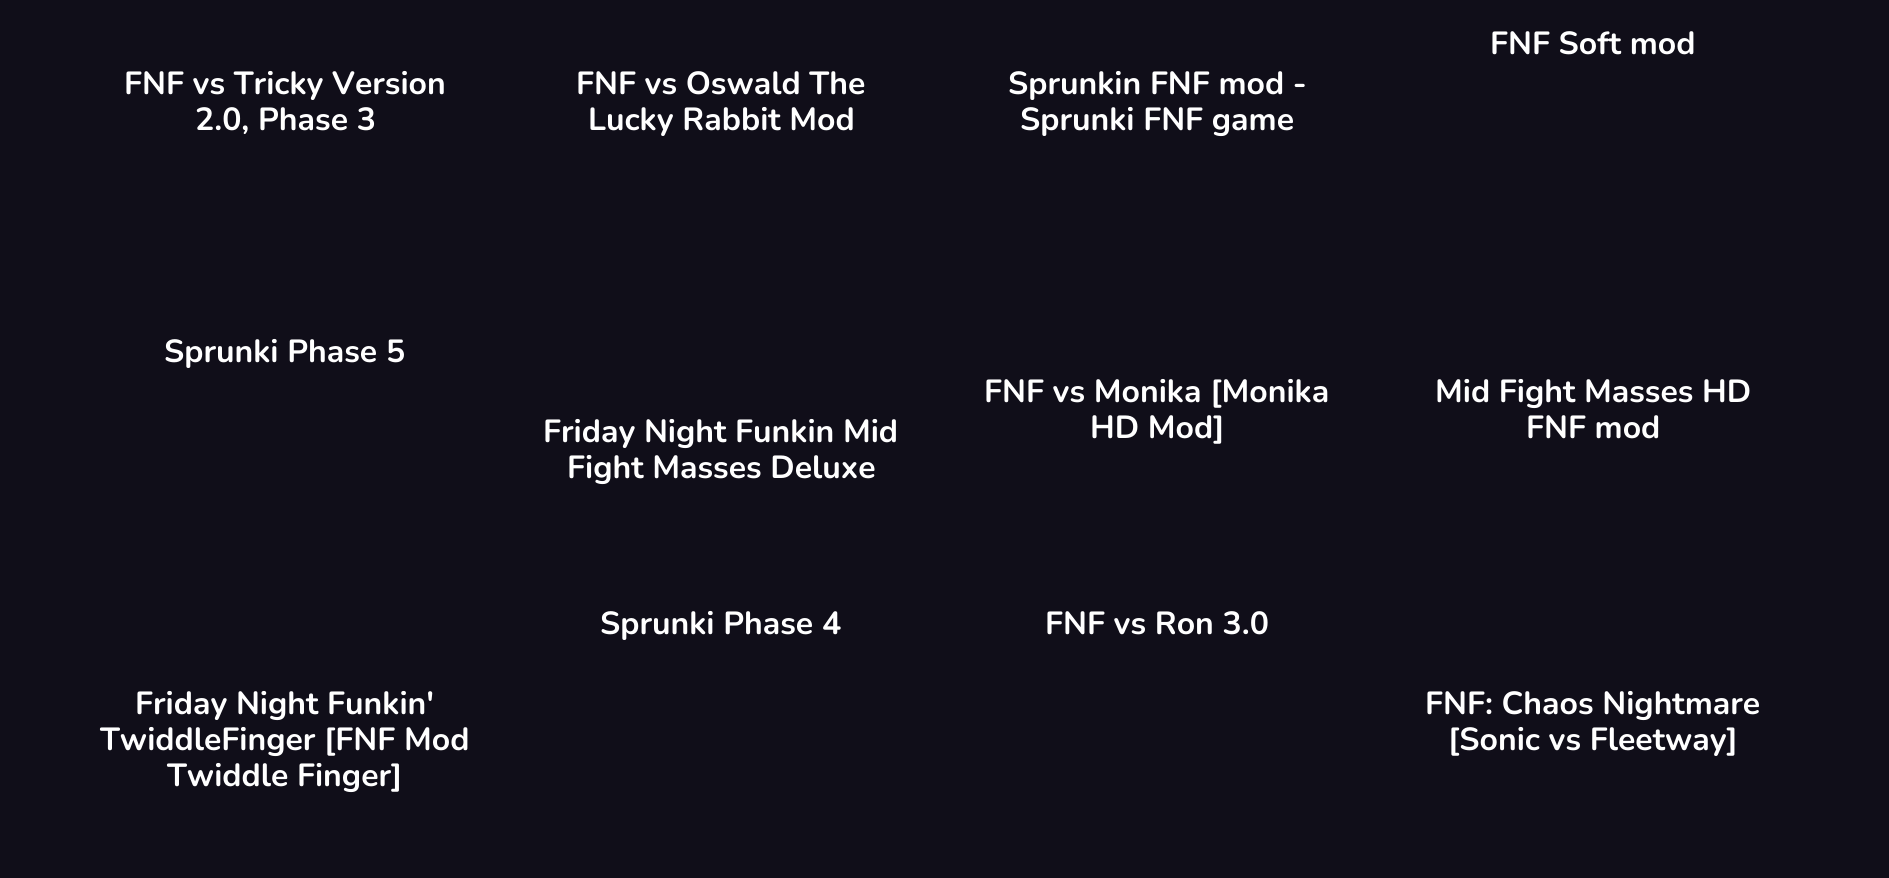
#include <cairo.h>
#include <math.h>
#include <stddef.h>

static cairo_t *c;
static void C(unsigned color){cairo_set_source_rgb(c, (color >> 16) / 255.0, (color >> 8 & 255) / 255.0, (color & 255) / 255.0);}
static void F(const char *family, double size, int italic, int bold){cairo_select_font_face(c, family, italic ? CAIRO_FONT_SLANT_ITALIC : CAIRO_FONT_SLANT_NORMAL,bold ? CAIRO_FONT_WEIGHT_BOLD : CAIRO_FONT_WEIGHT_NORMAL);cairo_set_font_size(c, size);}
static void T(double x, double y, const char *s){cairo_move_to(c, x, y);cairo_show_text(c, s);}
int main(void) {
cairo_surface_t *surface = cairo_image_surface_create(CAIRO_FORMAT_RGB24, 1889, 878);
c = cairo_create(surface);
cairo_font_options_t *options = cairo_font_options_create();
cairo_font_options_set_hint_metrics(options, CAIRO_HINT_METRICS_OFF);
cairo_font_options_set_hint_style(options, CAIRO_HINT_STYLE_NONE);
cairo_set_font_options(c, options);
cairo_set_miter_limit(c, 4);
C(0x100e19);
cairo_paint(c);
F("Nunito",32,0,1);
C(0xffffff);
T(1490,54,"FNF Soft mod");
T(124,94,"FNF vs Tricky Version");
T(195,130,"2.0, Phase 3");
T(576,94,"FNF vs Oswald The");
T(588,130,"Lucky Rabbit Mod");
T(1008,94,"Sprunkin FNF mod -");
T(1020,130,"Sprunki FNF game");
T(164,362,"Sprunki Phase 5");
T(984,402,"FNF vs Monika [Monika");
T(1090,438,"HD Mod]");
T(1435,402,"Mid Fight Masses HD");
T(1526,438,"FNF mod");
T(543,442,"Friday Night Funkin Mid");
T(567,478,"Fight Masses Deluxe");
T(600,634,"Sprunki Phase 4");
T(1045,634,"FNF vs Ron 3.0");
T(135,714,"Friday Night Funkin'");
T(100,750,"TwiddleFinger [FNF Mod");
T(167,786,"Twiddle Finger]");
T(1425,714,"FNF: Chaos Nightmare");
T(1448,750,"[Sonic vs Fleetway]");
cairo_surface_write_to_png(surface, "o.png");
cairo_font_options_destroy(options);
cairo_destroy(c);
cairo_surface_destroy(surface);
return 0;
}
